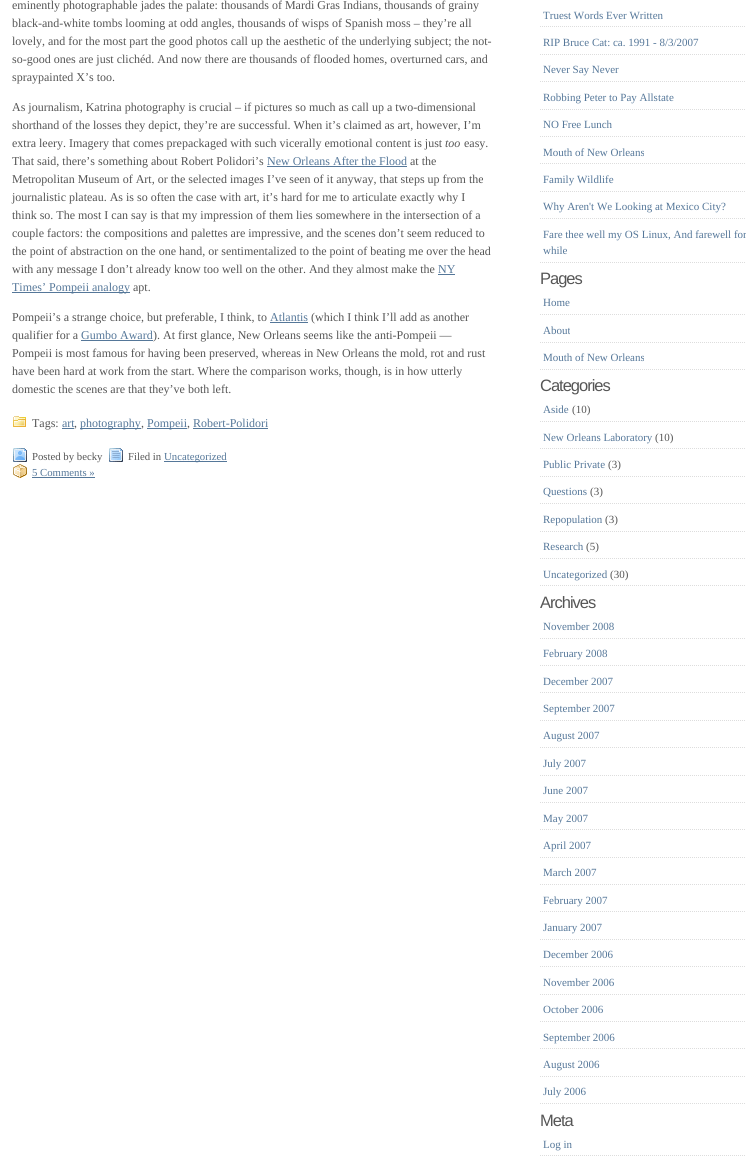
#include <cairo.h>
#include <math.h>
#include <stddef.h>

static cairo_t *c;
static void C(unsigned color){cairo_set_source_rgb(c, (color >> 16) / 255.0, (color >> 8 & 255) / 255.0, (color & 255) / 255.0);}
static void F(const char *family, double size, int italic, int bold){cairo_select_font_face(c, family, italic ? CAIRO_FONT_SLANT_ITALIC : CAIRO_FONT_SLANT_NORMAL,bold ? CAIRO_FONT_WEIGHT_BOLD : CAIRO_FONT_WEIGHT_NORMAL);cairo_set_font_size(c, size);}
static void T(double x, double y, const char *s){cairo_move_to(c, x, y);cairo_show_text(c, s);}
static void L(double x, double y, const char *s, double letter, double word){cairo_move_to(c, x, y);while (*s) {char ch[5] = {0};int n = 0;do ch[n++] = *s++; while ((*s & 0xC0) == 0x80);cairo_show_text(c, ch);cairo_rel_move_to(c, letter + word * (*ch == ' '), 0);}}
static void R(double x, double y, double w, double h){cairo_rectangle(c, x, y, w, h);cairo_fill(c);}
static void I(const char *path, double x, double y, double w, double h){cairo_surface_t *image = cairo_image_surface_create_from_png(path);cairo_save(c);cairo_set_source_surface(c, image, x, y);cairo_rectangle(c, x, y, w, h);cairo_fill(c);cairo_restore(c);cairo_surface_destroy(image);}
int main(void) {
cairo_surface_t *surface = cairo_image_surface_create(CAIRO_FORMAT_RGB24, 746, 1168);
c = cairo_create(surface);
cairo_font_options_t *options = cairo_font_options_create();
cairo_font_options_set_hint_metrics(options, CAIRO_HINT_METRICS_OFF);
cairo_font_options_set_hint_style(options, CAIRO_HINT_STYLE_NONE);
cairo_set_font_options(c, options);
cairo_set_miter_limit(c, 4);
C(0xffffff);
cairo_paint(c);
F("Liberation Serif",12,0,0);
C(0x555555);
T(12,9,"eminently photographable jades the palate: thousands of Mardi Gras Indians, thousands of grainy");
T(12,27,"black-and-white tombs looming at odd angles, thousands of wisps of Spanish moss – they’re all");
T(12,45,"lovely, and for the most part the good photos call up the aesthetic of the underlying subject; the not-");
T(12,63,"so-good ones are just clichéd. And now there are thousands of flooded homes, overturned cars, and");
T(12,81,"spraypainted X’s too.");
T(12,111,"As journalism, Katrina photography is crucial – if pictures so much as call up a two-dimensional");
T(12,129,"shorthand of the losses they depict, they’re are successful. When it’s claimed as art, however, I’m");
T(12,147,"extra leery. Imagery that comes prepackaged with such vicerally emotional content is just");
F("Liberation Serif",12,1,0);
T(445,147,"too");
F("Liberation Serif",12,0,0);
T(464,147,"easy.");
T(12,165,"That said, there’s something about Robert Polidori’s");
C(0x557799);
T(267,165,"New Orleans After the Flood");
R(267,166,140,1);
C(0x555555);
T(410,165,"at the");
T(12,183,"Metropolitan Museum of Art, or the selected images I’ve seen of it anyway, that steps up from the");
T(12,201,"journalistic plateau. As is so often the case with art, it’s hard for me to articulate exactly why I");
T(12,219,"think so. The most I can say is that my impression of them lies somewhere in the intersection of a");
T(12,237,"couple factors: the compositions and palettes are impressive, and the scenes don’t seem reduced to");
T(12,255,"the point of abstraction on the one hand, or sentimentalized to the point of beating me over the head");
T(12,273,"with any message I don’t already know too well on the other. And they almost make the");
C(0x557799);
T(438,273,"NY");
R(438,274,17,1);
R(12,292,118,1);
T(12,291,"Times’ Pompeii analogy");
C(0x555555);
T(133,291,"apt.");
T(12,321,"Pompeii’s a strange choice, but preferable, I think, to");
C(0x557799);
T(270,321,"Atlantis");
R(270,322,38,1);
C(0x555555);
T(311,321,"(which I think I’ll add as another");
T(12,339,"qualifier for a");
C(0x557799);
T(81,339,"Gumbo Award");
R(81,340,72,1);
C(0x555555);
T(153,339,"). At first glance, New Orleans seems like the anti-Pompeii —");
T(12,357,"Pompeii is most famous for having been preserved, whereas in New Orleans the mold, rot and rust");
T(12,375,"have been hard at work from the start. Where the comparison works, though, is in how utterly");
T(12,393,"domestic the scenes are that they’ve both left.");
I("1.png",13,416,13,11);
T(32,427,"Tags:");
C(0x557799);
T(62,427,"art");
C(0x555555);
T(74,427,",");
C(0x557799);
R(62,428,12,1);
R(80,428,61,1);
T(80,427,"photography");
C(0x555555);
T(141,427,",");
C(0x557799);
R(147,428,40,1);
T(147,427,"Pompeii");
C(0x555555);
T(187,427,",");
C(0x557799);
R(193,428,75,1);
T(193,427,"Robert-Polidori");
I("2.png",13,448,14,14);
F("Liberation Serif",10.75,0,0);
C(0x555555);
T(32,460,"Posted by becky");
I("3.png",109,448,14,14);
T(128,460,"Filed in");
C(0x557799);
R(164,461,63,1);
T(164,460,"Uncategorized");
I("4.png",13,464,14,14);
T(32,476,"5 Comments »");
R(32,477,63,1);
cairo_new_path(c);
cairo_move_to(c,540,26.5);
cairo_line_to(c,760,26.5);
C(0xdddddd);
cairo_set_line_width(c,1);
cairo_set_dash(c,(double[]){1,1},2,0);
cairo_stroke(c);
F("Liberation Serif",11,0,0);
C(0x557799);
T(543,19,"Truest Words Ever Written");
cairo_new_path(c);
cairo_move_to(c,540,54.5);
cairo_line_to(c,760,54.5);
C(0xdddddd);
cairo_stroke(c);
C(0x557799);
T(543,46,"RIP Bruce Cat: ca. 1991 - 8/3/2007");
cairo_new_path(c);
cairo_move_to(c,540,81.5);
cairo_line_to(c,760,81.5);
C(0xdddddd);
cairo_stroke(c);
C(0x557799);
T(543,73,"Never Say Never");
cairo_new_path(c);
cairo_move_to(c,540,109.5);
cairo_line_to(c,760,109.5);
C(0xdddddd);
cairo_stroke(c);
C(0x557799);
T(543,101,"Robbing Peter to Pay Allstate");
cairo_new_path(c);
cairo_move_to(c,540,136.5);
cairo_line_to(c,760,136.5);
C(0xdddddd);
cairo_stroke(c);
C(0x557799);
T(543,128,"NO Free Lunch");
cairo_new_path(c);
cairo_move_to(c,540,163.5);
cairo_line_to(c,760,163.5);
C(0xdddddd);
cairo_stroke(c);
C(0x557799);
T(543,156,"Mouth of New Orleans");
cairo_new_path(c);
cairo_move_to(c,540,191.5);
cairo_line_to(c,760,191.5);
C(0xdddddd);
cairo_stroke(c);
C(0x557799);
T(543,183,"Family Wildlife");
cairo_new_path(c);
cairo_move_to(c,540,218.5);
cairo_line_to(c,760,218.5);
C(0xdddddd);
cairo_stroke(c);
C(0x557799);
T(543,210,"Why Aren't We Looking at Mexico City?");
cairo_new_path(c);
cairo_move_to(c,540,262.5);
cairo_line_to(c,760,262.5);
C(0xdddddd);
cairo_stroke(c);
C(0x557799);
T(543,238,"Fare thee well my OS Linux, And farewell for");
T(543,254,"while");
F("Liberation Sans",16.5,0,0);
C(0x555555);
L(540,284,"Pages",-1,0);
cairo_new_path(c);
cairo_move_to(c,540,314.5);
cairo_line_to(c,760,314.5);
C(0xdddddd);
cairo_stroke(c);
F("Liberation Serif",11,0,0);
C(0x557799);
T(543,306,"Home");
cairo_new_path(c);
cairo_move_to(c,540,342.5);
cairo_line_to(c,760,342.5);
C(0xdddddd);
cairo_stroke(c);
C(0x557799);
T(543,334,"About");
cairo_new_path(c);
cairo_move_to(c,540,369.5);
cairo_line_to(c,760,369.5);
C(0xdddddd);
cairo_stroke(c);
C(0x557799);
T(543,361,"Mouth of New Orleans");
F("Liberation Sans",16.5,0,0);
C(0x555555);
L(540,391,"Categories",-1,0);
cairo_new_path(c);
cairo_move_to(c,540,421.5);
cairo_line_to(c,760,421.5);
C(0xdddddd);
cairo_stroke(c);
F("Liberation Serif",11,0,0);
C(0x557799);
T(543,413,"Aside");
C(0x555555);
T(572,413,"(10)");
cairo_new_path(c);
cairo_move_to(c,540,448.5);
cairo_line_to(c,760,448.5);
C(0xdddddd);
cairo_stroke(c);
C(0x557799);
T(543,441,"New Orleans Laboratory");
C(0x555555);
T(655,441,"(10)");
cairo_new_path(c);
cairo_move_to(c,540,476.5);
cairo_line_to(c,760,476.5);
C(0xdddddd);
cairo_stroke(c);
C(0x557799);
T(543,468,"Public Private");
C(0x555555);
T(608,468,"(3)");
cairo_new_path(c);
cairo_move_to(c,540,503.5);
cairo_line_to(c,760,503.5);
C(0xdddddd);
cairo_stroke(c);
C(0x557799);
T(543,495,"Questions");
C(0x555555);
T(590,495,"(3)");
cairo_new_path(c);
cairo_move_to(c,540,531.5);
cairo_line_to(c,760,531.5);
C(0xdddddd);
cairo_stroke(c);
C(0x557799);
T(543,523,"Repopulation");
C(0x555555);
T(605,523,"(3)");
cairo_new_path(c);
cairo_move_to(c,540,558.5);
cairo_line_to(c,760,558.5);
C(0xdddddd);
cairo_stroke(c);
C(0x557799);
T(543,550,"Research");
C(0x555555);
T(586,550,"(5)");
cairo_new_path(c);
cairo_move_to(c,540,585.5);
cairo_line_to(c,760,585.5);
C(0xdddddd);
cairo_stroke(c);
C(0x557799);
T(543,578,"Uncategorized");
C(0x555555);
T(610,578,"(30)");
F("Liberation Sans",16.5,0,0);
L(540,608,"Archives",-1,0);
cairo_new_path(c);
cairo_move_to(c,540,638.5);
cairo_line_to(c,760,638.5);
C(0xdddddd);
cairo_stroke(c);
F("Liberation Serif",11,0,0);
C(0x557799);
T(543,630,"November 2008");
cairo_new_path(c);
cairo_move_to(c,540,665.5);
cairo_line_to(c,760,665.5);
C(0xdddddd);
cairo_stroke(c);
C(0x557799);
T(543,657,"February 2008");
cairo_new_path(c);
cairo_move_to(c,540,692.5);
cairo_line_to(c,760,692.5);
C(0xdddddd);
cairo_stroke(c);
C(0x557799);
T(543,685,"December 2007");
cairo_new_path(c);
cairo_move_to(c,540,720.5);
cairo_line_to(c,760,720.5);
C(0xdddddd);
cairo_stroke(c);
C(0x557799);
T(543,712,"September 2007");
cairo_new_path(c);
cairo_move_to(c,540,747.5);
cairo_line_to(c,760,747.5);
C(0xdddddd);
cairo_stroke(c);
C(0x557799);
T(543,739,"August 2007");
cairo_new_path(c);
cairo_move_to(c,540,775.5);
cairo_line_to(c,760,775.5);
C(0xdddddd);
cairo_stroke(c);
C(0x557799);
T(543,767,"July 2007");
cairo_new_path(c);
cairo_move_to(c,540,802.5);
cairo_line_to(c,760,802.5);
C(0xdddddd);
cairo_stroke(c);
C(0x557799);
T(543,794,"June 2007");
cairo_new_path(c);
cairo_move_to(c,540,829.5);
cairo_line_to(c,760,829.5);
C(0xdddddd);
cairo_stroke(c);
C(0x557799);
T(543,822,"May 2007");
cairo_new_path(c);
cairo_move_to(c,540,857.5);
cairo_line_to(c,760,857.5);
C(0xdddddd);
cairo_stroke(c);
C(0x557799);
T(543,849,"April 2007");
cairo_new_path(c);
cairo_move_to(c,540,884.5);
cairo_line_to(c,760,884.5);
C(0xdddddd);
cairo_stroke(c);
C(0x557799);
T(543,876,"March 2007");
cairo_new_path(c);
cairo_move_to(c,540,911.5);
cairo_line_to(c,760,911.5);
C(0xdddddd);
cairo_stroke(c);
C(0x557799);
T(543,904,"February 2007");
cairo_new_path(c);
cairo_move_to(c,540,939.5);
cairo_line_to(c,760,939.5);
C(0xdddddd);
cairo_stroke(c);
C(0x557799);
T(543,931,"January 2007");
cairo_new_path(c);
cairo_move_to(c,540,966.5);
cairo_line_to(c,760,966.5);
C(0xdddddd);
cairo_stroke(c);
C(0x557799);
T(543,958,"December 2006");
cairo_new_path(c);
cairo_move_to(c,540,994.5);
cairo_line_to(c,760,994.5);
C(0xdddddd);
cairo_stroke(c);
C(0x557799);
T(543,986,"November 2006");
cairo_new_path(c);
cairo_move_to(c,540,1021.5);
cairo_line_to(c,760,1021.5);
C(0xdddddd);
cairo_stroke(c);
C(0x557799);
T(543,1013,"October 2006");
cairo_new_path(c);
cairo_move_to(c,540,1048.5);
cairo_line_to(c,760,1048.5);
C(0xdddddd);
cairo_stroke(c);
C(0x557799);
T(543,1041,"September 2006");
cairo_new_path(c);
cairo_move_to(c,540,1076.5);
cairo_line_to(c,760,1076.5);
C(0xdddddd);
cairo_stroke(c);
C(0x557799);
T(543,1068,"August 2006");
cairo_new_path(c);
cairo_move_to(c,540,1103.5);
cairo_line_to(c,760,1103.5);
C(0xdddddd);
cairo_stroke(c);
C(0x557799);
T(543,1095,"July 2006");
F("Liberation Sans",16.5,0,0);
C(0x555555);
L(540,1126,"Meta",-1,0);
cairo_new_path(c);
cairo_move_to(c,540,1155.5);
cairo_line_to(c,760,1155.5);
C(0xdddddd);
cairo_stroke(c);
F("Liberation Serif",11,0,0);
C(0x557799);
T(543,1148,"Log in");
cairo_surface_write_to_png(surface, "o.png");
cairo_font_options_destroy(options);
cairo_destroy(c);
cairo_surface_destroy(surface);
return 0;
}
